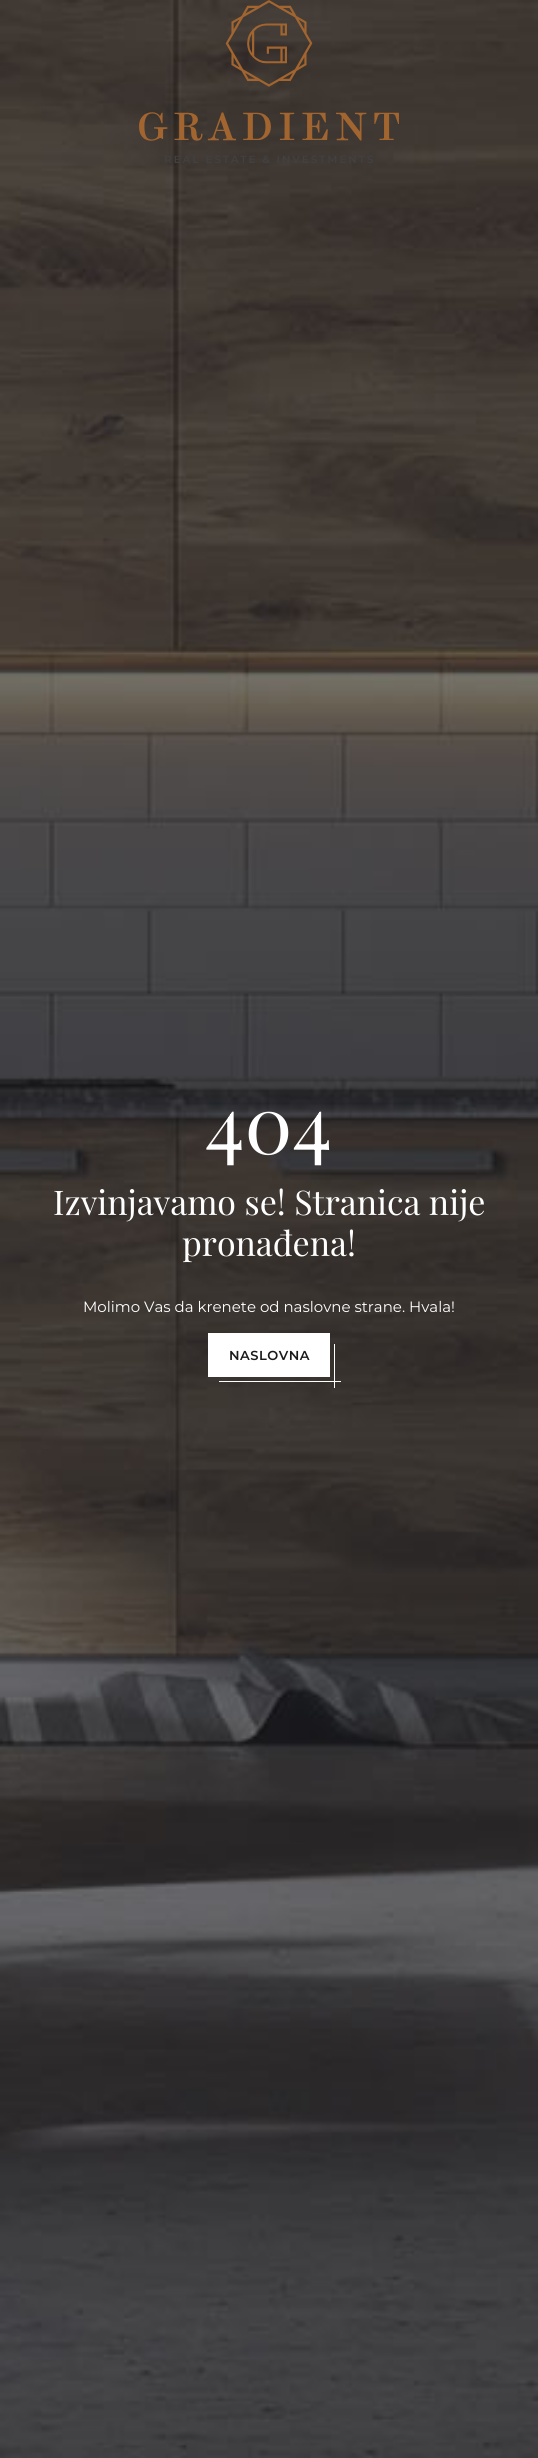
#include <cairo.h>
#include <math.h>
#include <stddef.h>

static cairo_t *c;
static void C(unsigned color){cairo_set_source_rgb(c, (color >> 16) / 255.0, (color >> 8 & 255) / 255.0, (color & 255) / 255.0);}
static void F(const char *family, double size, int italic, int bold){cairo_select_font_face(c, family, italic ? CAIRO_FONT_SLANT_ITALIC : CAIRO_FONT_SLANT_NORMAL,bold ? CAIRO_FONT_WEIGHT_BOLD : CAIRO_FONT_WEIGHT_NORMAL);cairo_set_font_size(c, size);}
static void T(double x, double y, const char *s){cairo_move_to(c, x, y);cairo_show_text(c, s);}
static void L(double x, double y, const char *s, double letter, double word){cairo_move_to(c, x, y);while (*s) {char ch[5] = {0};int n = 0;do ch[n++] = *s++; while ((*s & 0xC0) == 0x80);cairo_show_text(c, ch);cairo_rel_move_to(c, letter + word * (*ch == ' '), 0);}}
static void R(double x, double y, double w, double h){cairo_rectangle(c, x, y, w, h);cairo_fill(c);}
static void I(const char *path, double x, double y, double w, double h){cairo_surface_t *image = cairo_image_surface_create_from_png(path);cairo_save(c);cairo_set_source_surface(c, image, x, y);cairo_rectangle(c, x, y, w, h);cairo_fill(c);cairo_restore(c);cairo_surface_destroy(image);}
int main(void) {
cairo_surface_t *surface = cairo_image_surface_create(CAIRO_FORMAT_RGB24, 538, 2458);
c = cairo_create(surface);
cairo_font_options_t *options = cairo_font_options_create();
cairo_font_options_set_hint_metrics(options, CAIRO_HINT_METRICS_OFF);
cairo_font_options_set_hint_style(options, CAIRO_HINT_STYLE_NONE);
cairo_set_font_options(c, options);
cairo_set_miter_limit(c, 4);
C(0xffffff);
cairo_paint(c);
I("1.png",0,0,538,2458);
I("2.png",139,0,260,163);
F("Playfair Display",80,0,0);
C(0xffffff);
T(205,1154,"404");
F("Playfair Display",34,0,0);
T(53,1215,"Izvinjavamo se! Stranica nije");
T(182,1256,"pronađena!");
F("Montserrat Thin",15,0,0);
T(83,1312,"Molimo Vas da krenete od naslovne strane. Hvala!");
R(208,1333,122,44);
F("Montserrat SemiBold",13,0,0);
C(0x1a1a1a);
L(229,1360,"NASLOVNA",.5,0);
C(0xffffff);
R(219,1381,122,1);
R(334,1344,1,44);
cairo_surface_write_to_png(surface, "o.png");
cairo_font_options_destroy(options);
cairo_destroy(c);
cairo_surface_destroy(surface);
return 0;
}
